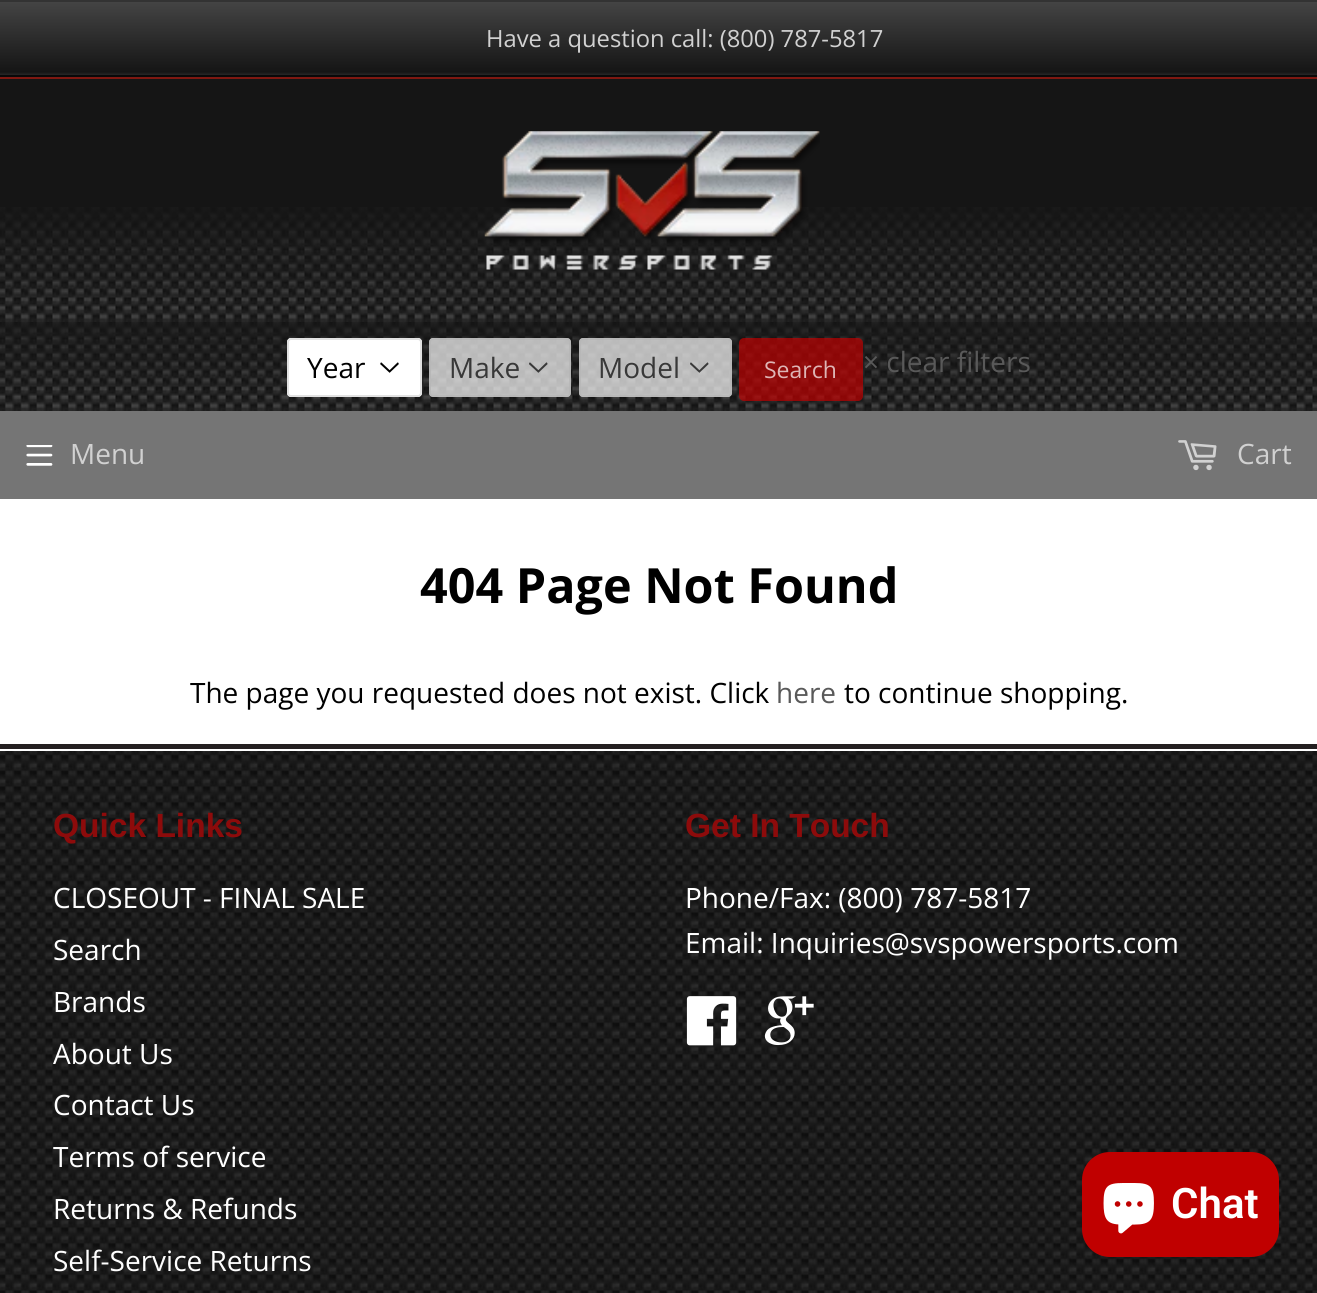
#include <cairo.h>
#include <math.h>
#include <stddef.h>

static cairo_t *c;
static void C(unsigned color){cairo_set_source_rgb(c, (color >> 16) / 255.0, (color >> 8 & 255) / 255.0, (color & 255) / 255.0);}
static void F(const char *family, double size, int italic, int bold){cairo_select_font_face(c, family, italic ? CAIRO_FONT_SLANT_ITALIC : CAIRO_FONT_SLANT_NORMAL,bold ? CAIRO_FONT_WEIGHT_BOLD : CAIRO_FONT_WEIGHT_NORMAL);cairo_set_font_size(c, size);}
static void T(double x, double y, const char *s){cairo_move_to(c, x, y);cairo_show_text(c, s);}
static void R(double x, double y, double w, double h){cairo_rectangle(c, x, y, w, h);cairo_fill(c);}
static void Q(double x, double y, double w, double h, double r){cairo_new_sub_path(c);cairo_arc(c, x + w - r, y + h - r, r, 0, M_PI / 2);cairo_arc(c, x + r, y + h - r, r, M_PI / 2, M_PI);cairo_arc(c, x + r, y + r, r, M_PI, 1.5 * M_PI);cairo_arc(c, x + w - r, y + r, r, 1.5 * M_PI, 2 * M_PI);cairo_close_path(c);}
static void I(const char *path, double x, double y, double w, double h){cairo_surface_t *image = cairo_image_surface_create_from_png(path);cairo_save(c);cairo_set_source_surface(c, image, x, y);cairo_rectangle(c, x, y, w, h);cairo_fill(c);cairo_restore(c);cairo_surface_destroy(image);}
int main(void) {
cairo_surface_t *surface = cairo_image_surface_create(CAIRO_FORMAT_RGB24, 1317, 1293);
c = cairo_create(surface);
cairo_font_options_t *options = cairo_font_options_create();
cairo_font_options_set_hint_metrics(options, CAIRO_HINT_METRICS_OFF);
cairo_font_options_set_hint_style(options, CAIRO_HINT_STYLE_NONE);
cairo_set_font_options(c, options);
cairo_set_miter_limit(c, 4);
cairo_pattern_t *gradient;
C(0xffffff);
cairo_paint(c);
gradient = cairo_pattern_create_linear(659,1.7,659,75);
cairo_pattern_add_color_stop_rgba(gradient,0,0.267,0.267,0.267,1);
cairo_pattern_add_color_stop_rgba(gradient,.96,0.082,0.082,0.082,1);
cairo_pattern_add_color_stop_rgba(gradient,1,0.153,0.153,0.153,1);
cairo_set_source(c,gradient);
cairo_pattern_destroy(gradient);
R(0,2,1317,73);
C(0x333333);
R(0,0,1317,2);
C(0x090909);
R(0,75,1317,2);
F("Open Sans",23.75,0,0);
C(0xd1d1d1);
T(486,47,"Have a question call: (800) 787-5817");
C(0x151515);
R(0,79,1317,128);
I("1.png",0,207,1317,115);
C(0x7f1811);
R(0,77,1317,2);
I("2.png",484,131,336,139);
I("3.png",0,322,1317,89);
C(0xffffff);
Q(287,338,135,59,4);
cairo_fill(c);
I("4.png",380,362,19,11);
Q(288,339,133,57,3);
C(0xe2e2e2);
cairo_stroke(c);
F("Open Sans",28,0,0);
C(0x000000);
T(307,378,"Year");
cairo_set_source_rgba(c,1,1,1,0.7);
Q(429,338,142,59,4);
cairo_fill(c);
I("5.png",529,362,19,11);
Q(430,339,140,57,3);
cairo_set_source_rgba(c,0.714,0.714,0.714,0.7);
cairo_stroke(c);
C(0x383838);
T(449,378,"Make");
cairo_set_source_rgba(c,1,1,1,0.7);
Q(579,338,153,59,4);
cairo_fill(c);
I("6.png",690,362,19,11);
Q(580,339,151,57,3);
cairo_set_source_rgba(c,0.714,0.714,0.714,0.7);
cairo_stroke(c);
C(0x383838);
T(598,378,"Model");
cairo_set_source_rgba(c,0.753,0,0,0.7);
Q(739,338,124,63,5);
cairo_fill(c);
F("Open Sans",23,0,0);
C(0xdeb5b5);
T(764,378,"Search");
F("Open Sans",28,0,0);
C(0x595959);
T(863,372,"× clear filters");
C(0x757575);
R(0,411,1317,88);
I("7.png",26,445,27,21);
C(0xd1d1d1);
T(70,464,"Menu");
I("8.png",1178,440,39,31);
T(1237,464,"Cart");
F("Open Sans",48.5,0,1);
C(0x000000);
T(420,603,"404 Page Not Found");
F("Open Sans",28,0,0);
T(190,703,"The page you requested does not exist. Click");
C(0x595959);
T(776,703,"here");
C(0x000000);
T(844,703,"to continue shopping.");
C(0x231f20);
R(0,744,1317,5);
I("9.png",0,751,1317,542);
F("Liberation Sans",33.5,0,1);
C(0x8d0b0b);
T(53,837,"Quick Links");
F("Open Sans",28,0,0);
C(0xffffff);
T(53,908,"CLOSEOUT - FINAL SALE");
T(53,960,"Search");
T(53,1012,"Brands");
T(53,1064,"About Us");
T(53,1115,"Contact Us");
T(53,1167,"Terms of service");
T(53,1219,"Returns & Refunds");
T(53,1271,"Self-Service Returns");
F("Liberation Sans",33.5,0,1);
C(0x8d0b0b);
T(685,837,"Get In Touch");
F("Open Sans",28,0,0);
C(0xffffff);
T(685,908,"Phone/Fax: (800) 787-5817");
T(685,953,"Email: Inquiries@svspowersports.com");
I("10.png",686,996,51,50);
I("11.png",764,996,50,50);
C(0xc00000);
Q(1082,1152,197,105,28);
cairo_fill(c);
I("12.png",1103,1183,51,51);
F("Roboto SemiBold",42,0,0);
C(0xffffff);
T(1171,1218,"Chat");
cairo_surface_write_to_png(surface, "o.png");
cairo_font_options_destroy(options);
cairo_destroy(c);
cairo_surface_destroy(surface);
return 0;
}
